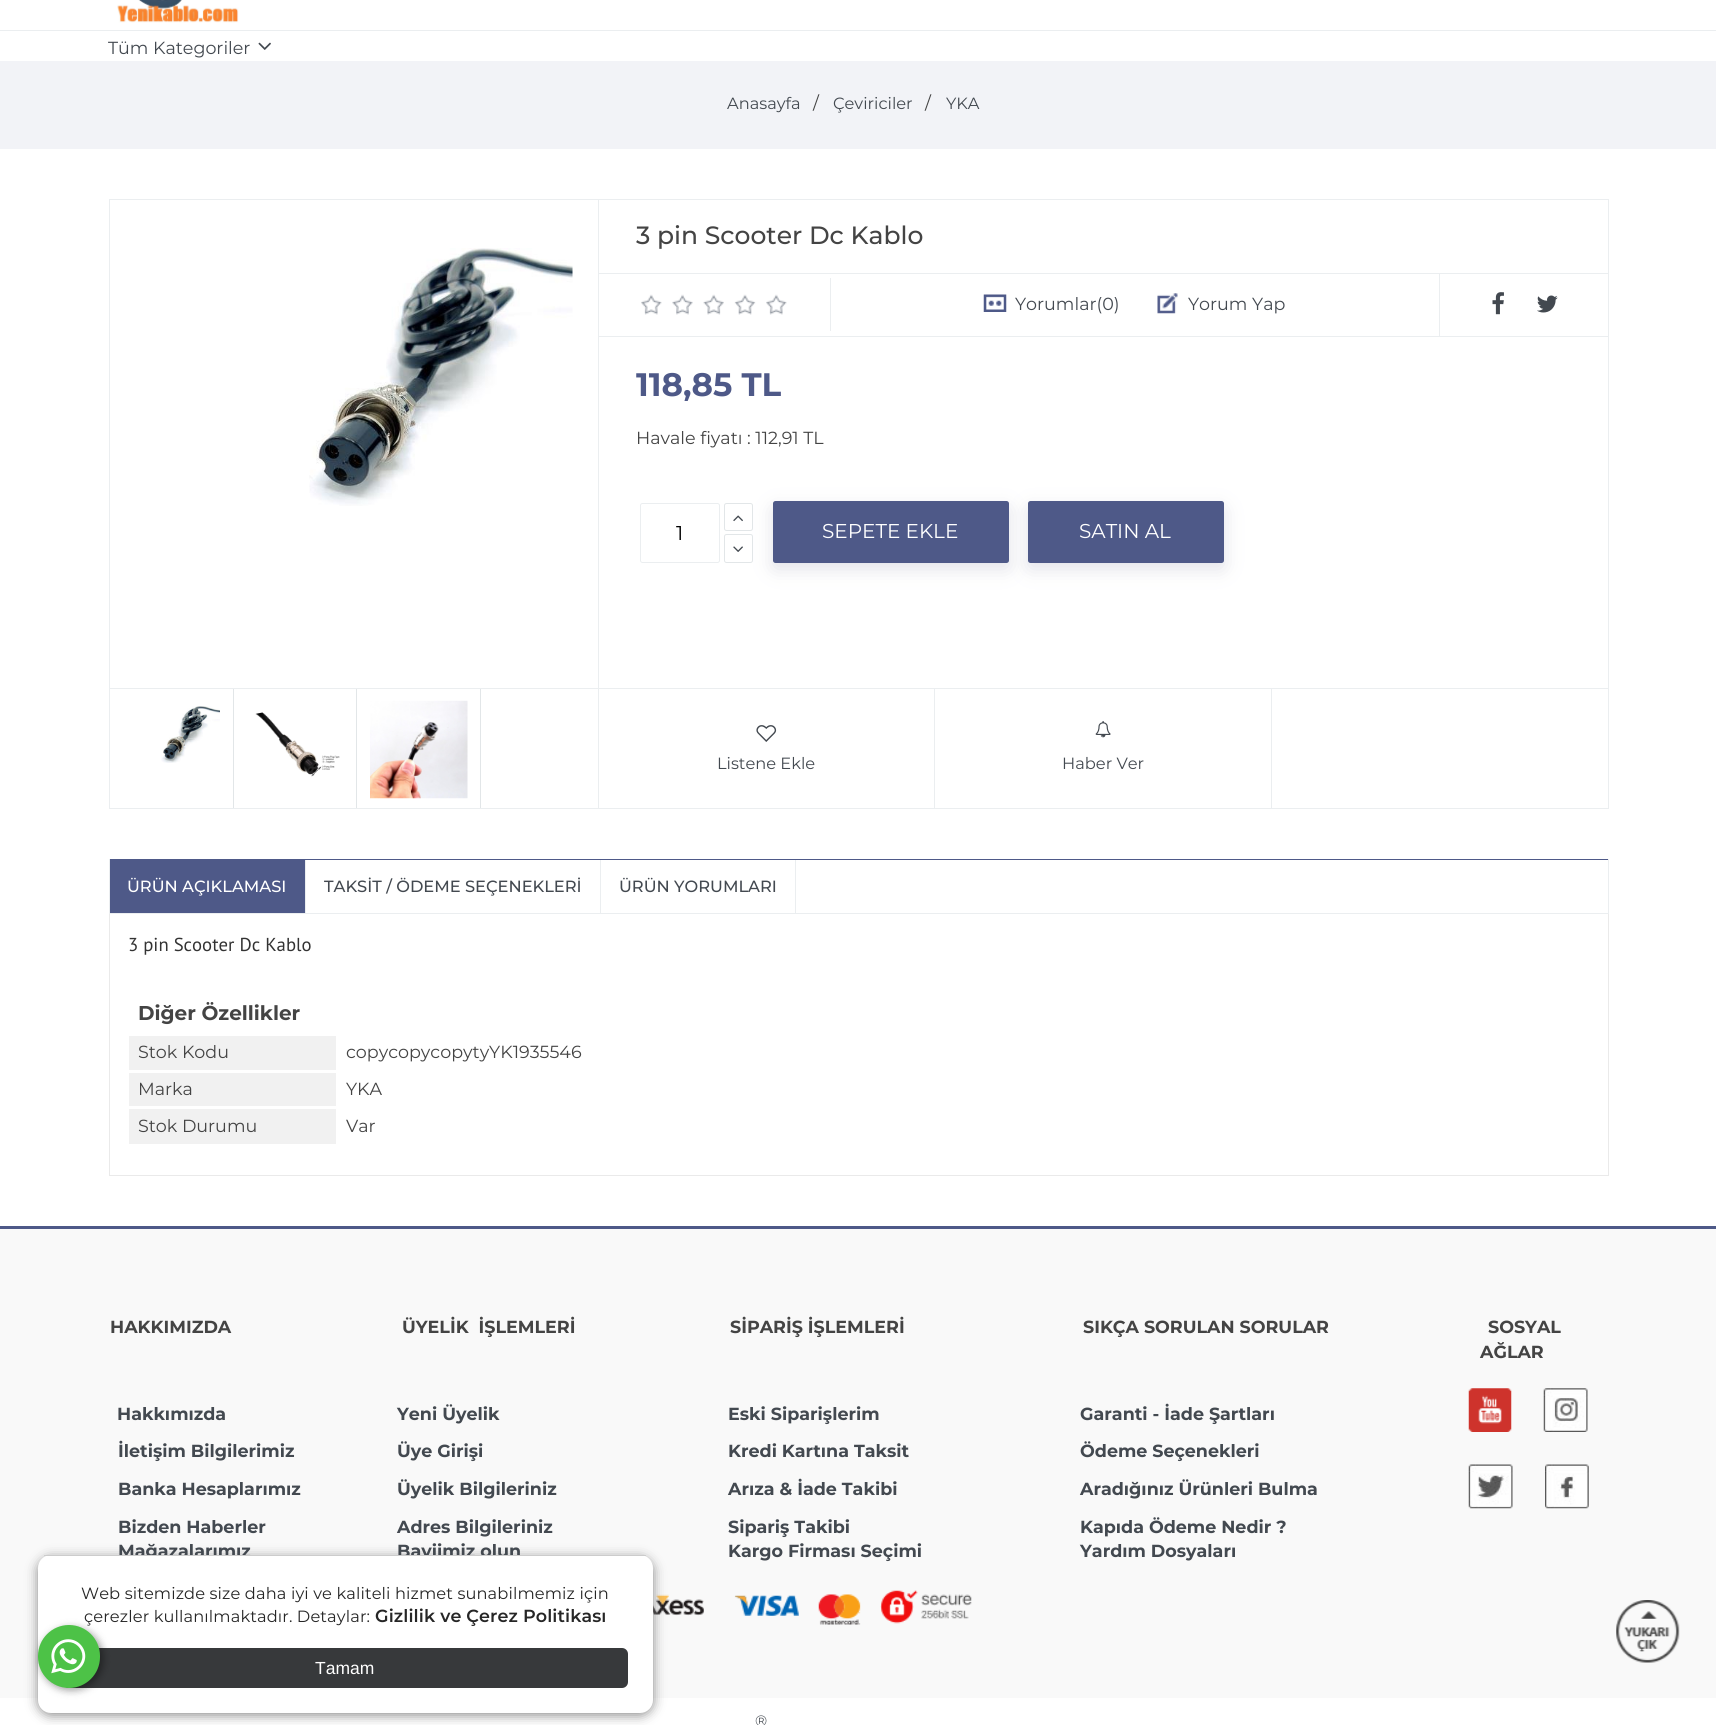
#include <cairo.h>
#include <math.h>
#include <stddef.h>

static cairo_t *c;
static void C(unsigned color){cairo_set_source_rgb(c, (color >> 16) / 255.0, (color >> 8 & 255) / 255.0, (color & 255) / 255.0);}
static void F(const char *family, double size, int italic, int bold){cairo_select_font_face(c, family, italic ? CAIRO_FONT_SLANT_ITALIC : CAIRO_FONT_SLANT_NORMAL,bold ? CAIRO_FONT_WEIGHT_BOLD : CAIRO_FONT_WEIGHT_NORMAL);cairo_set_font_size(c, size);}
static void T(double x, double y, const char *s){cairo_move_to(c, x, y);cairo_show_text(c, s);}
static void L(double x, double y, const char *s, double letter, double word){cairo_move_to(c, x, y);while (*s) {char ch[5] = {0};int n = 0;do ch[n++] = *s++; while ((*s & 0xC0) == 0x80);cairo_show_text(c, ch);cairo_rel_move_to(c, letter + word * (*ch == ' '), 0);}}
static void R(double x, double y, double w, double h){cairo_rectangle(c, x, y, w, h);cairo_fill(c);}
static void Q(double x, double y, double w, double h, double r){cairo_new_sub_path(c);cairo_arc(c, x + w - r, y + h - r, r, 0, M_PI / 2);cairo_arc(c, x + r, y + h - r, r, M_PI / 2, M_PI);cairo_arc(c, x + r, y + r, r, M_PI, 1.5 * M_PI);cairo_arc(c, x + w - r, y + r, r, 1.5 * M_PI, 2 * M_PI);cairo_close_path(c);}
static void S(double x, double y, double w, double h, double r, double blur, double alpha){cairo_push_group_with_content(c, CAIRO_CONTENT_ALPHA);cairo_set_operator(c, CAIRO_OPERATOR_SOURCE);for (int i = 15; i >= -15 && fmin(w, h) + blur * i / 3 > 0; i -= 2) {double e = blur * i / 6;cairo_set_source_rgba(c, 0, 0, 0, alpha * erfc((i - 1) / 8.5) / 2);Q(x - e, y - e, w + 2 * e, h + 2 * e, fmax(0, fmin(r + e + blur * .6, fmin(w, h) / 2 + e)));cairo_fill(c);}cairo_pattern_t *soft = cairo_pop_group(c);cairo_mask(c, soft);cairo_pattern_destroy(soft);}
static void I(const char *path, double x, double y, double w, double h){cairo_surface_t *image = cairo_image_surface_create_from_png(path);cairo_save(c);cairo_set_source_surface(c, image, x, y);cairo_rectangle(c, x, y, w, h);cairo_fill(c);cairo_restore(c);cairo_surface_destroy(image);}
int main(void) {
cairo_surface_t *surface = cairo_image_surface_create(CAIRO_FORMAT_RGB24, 1716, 1725);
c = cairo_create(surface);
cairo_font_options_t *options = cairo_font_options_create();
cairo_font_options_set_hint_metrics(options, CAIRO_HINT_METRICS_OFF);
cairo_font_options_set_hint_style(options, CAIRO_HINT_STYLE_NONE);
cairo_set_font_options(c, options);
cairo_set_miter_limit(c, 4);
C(0xffffff);
cairo_paint(c);
C(0xf9f9f9);
R(0,1229,1716,469);
I("22.png",653,1590,319,35);
C(0x888888);
S(38,1558,615,157,13,6,1);
F("Montserrat",17.5,0,1);
C(0x434950);
T(118,1557,"Mağazalarımız");
T(397,1557,"Bayiimiz olun");
C(0xffffff);
Q(38,1555,615,158,13);
cairo_fill(c);
C(0x37393b);
Q(63,1648,565,40,6);
cairo_fill(c);
C(0x000000);
S(40,1628,63,62,31,4,.4);
F("Montserrat",16.25,0,0);
C(0x262626);
L(84,1622,"çerezler kullanılmaktadır. Detaylar:",.12,0);
C(0x4dc247);
Q(38,1625,62,63,31);
cairo_fill(c);
I("1.png",51,1639,35,35);
I("2.png",117,0,122,23);
C(0xebeef0);
R(0,30,1716,1);
F("Montserrat",17.5,0,0);
C(0x434950);
T(108,54,"Tüm Kategoriler");
I("3.png",258,42,13,8);
C(0xcccccc);
R(44,1555,602,1);
F("Montserrat",16.25,0,0);
C(0x262626);
L(81,1599,"Web sitemizde size daha iyi ve kaliteli hizmet sunabilmemiz için",.12,0);
F("Montserrat SemiBold",17.5,0,0);
L(375,1622,"Gizlilik ve Çerez Politikası",.12,0);
F("Liberation Sans",17.5,0,0);
C(0xffffff);
T(315,1674,"Tamam");
I("4.png",1616,1600,64,63);
C(0xf2f3f7);
R(0,61,1716,88);
F("Montserrat",16.25,0,0);
C(0x434950);
T(727,109,"Anasayfa");
F("Montserrat",17.5,0,0);
C(0x444444);
T(813,109,"/");
F("Montserrat",16.25,0,0);
C(0x434950);
T(833,109,"Çeviriciler");
F("Montserrat",17.5,0,0);
C(0x444444);
T(925,109,"/");
F("Montserrat",16.25,0,0);
C(0x434950);
T(946,109,"YKA");
cairo_rectangle(c,109.5,199.5,1499,609);
C(0xebeef0);
cairo_set_line_width(c,1);
cairo_stroke(c);
R(598,200,1,608);
R(110,688,488,1);
I("5.png",309,248,264,258);
C(0xe2e6e8);
R(233,689,1,119);
I("6.png",161,706,59,57);
R(356,689,1,119);
I("7.png",255,712,85,65);
R(480,689,1,119);
I("8.png",370,700,98,99);
F("Montserrat Medium",25,0,0);
C(0x444444);
T(636,244,"3 pin Scooter Dc Kablo");
C(0xebeef0);
R(599,273,1009,1);
R(599,336,1009,1);
R(830,278,1,53);
I("9.png",641,294,146,21);
I("10.png",983,294,24,18);
F("Montserrat",17.5,0,0);
C(0x434950);
T(1015,310,"Yorumlar(0)");
I("11.png",1157,293,21,21);
T(1188,310,"Yorum Yap");
C(0xebeef0);
R(1439,274,1,62);
I("12.png",1492,292,12,23);
I("13.png",1537,295,21,18);
F("Montserrat",32.5,0,1);
C(0x4e5988);
T(636,396,"118,85 TL");
F("Montserrat",17.5,0,0);
C(0x444444);
T(636,444,"Havale fiyatı : 112,91 TL");
Q(640.5,503.5,79,59,2);
C(0xebeef0);
cairo_stroke(c);
F("Montserrat",20,0,0);
C(0x000000);
T(676,540,"1");
C(0x636588);
S(773,508,236,61,2.5,9.5,.19);
Q(724.5,503.5,28,27,2);
C(0xe2e6e8);
cairo_stroke(c);
I("14.png",733,515,10,7);
Q(724.5,534.5,28,28,2);
cairo_stroke(c);
I("15.png",733,546,10,6);
C(0x4e5988);
Q(773,501,236,62,2.5);
cairo_fill(c);
C(0xffffff);
T(822,538,"SEPETE EKLE");
C(0x636588);
S(1028,508,196,61,2.5,9.5,.19);
C(0x4e5988);
Q(1028,501,196,62,2.5);
cairo_fill(c);
C(0xffffff);
T(1079,538,"SATIN AL");
C(0xebeef0);
R(599,688,1009,1);
R(934,689,1,119);
I("16.png",756,725,21,17);
F("Montserrat",16.25,0,0);
C(0x434950);
T(717,769,"Listene Ekle");
C(0xebeef0);
R(1271,689,1,119);
I("17.png",1095,721,16,17);
C(0x434950);
T(1062,769,"Haber Ver");
C(0x4e5988);
R(109,859,1500,1);
C(0xebeef0);
R(1608,859,1,55);
R(109,913,1500,1);
R(109,859,1,55);
C(0x4e5988);
R(110,860,195,53);
C(0xebeef0);
R(305,860,1,53);
F("Montserrat Medium",16.25,0,0);
C(0xffffff);
T(127,892,"ÜRÜN AÇIKLAMASI");
C(0xebeef0);
R(600,860,1,53);
C(0x434950);
T(324,892,"TAKSİT / ÖDEME SEÇENEKLERİ");
C(0xebeef0);
R(795,860,1,53);
C(0x434950);
T(619,892,"ÜRÜN YORUMLARI");
C(0xeaeaea);
R(1608,914,1,262);
R(109,1175,1500,1);
R(109,914,1,262);
F("PT Sans",18.75,0,0);
C(0x333333);
T(128,951,"3 pin Scooter Dc Kablo");
F("Montserrat",20,0,1);
C(0x444444);
T(138,1020,"Diğer Özellikler");
C(0xf1f1f1);
R(129,1036,207,34);
F("Montserrat",17.5,0,0);
C(0x444444);
T(138,1058,"Stok Kodu");
T(346,1058,"copycopycopytyYK1935546");
C(0xf1f1f1);
R(129,1073,207,33);
C(0x444444);
T(138,1095,"Marka");
T(346,1095,"YKA");
C(0xf1f1f1);
R(129,1109,207,35);
C(0x444444);
T(138,1132,"Stok Durumu");
T(346,1132,"Var");
C(0x4e5988);
R(0,1226,1716,3);
F("Montserrat",17.5,0,1);
C(0x444444);
T(110,1333,"HAKKIMIZDA");
T(402,1333,"ÜYELİK  İŞLEMLERİ");
T(730,1333,"SİPARİŞ İŞLEMLERİ");
T(1083,1333,"SIKÇA SORULAN SORULAR");
T(1488,1333,"SOSYAL");
T(1480,1358,"AĞLAR");
C(0x434950);
T(117,1420,"Hakkımızda");
T(397,1420,"Yeni Üyelik");
T(728,1420,"Eski Siparişlerim");
T(1080,1420,"Garanti - İade Şartları");
I("18.png",1468,1388,44,44);
I("19.png",1543,1388,45,44);
T(118,1457,"İletişim Bilgilerimiz");
T(397,1457,"Üye Girişi");
T(728,1457,"Kredi Kartına Taksit");
T(1080,1457,"Ödeme Seçenekleri");
T(118,1495,"Banka Hesaplarımız");
T(397,1495,"Üyelik Bilgileriniz");
T(728,1495,"Arıza & İade Takibi");
T(1080,1495,"Aradığınız Ürünleri Bulma");
I("20.png",1468,1464,45,45);
I("21.png",1545,1464,44,45);
T(118,1533,"Bizden Haberler");
T(397,1533,"Adres Bilgileriniz");
T(728,1533,"Sipariş Takibi");
T(1080,1533,"Kapıda Ödeme Nedir ?");
T(728,1557,"Kargo Firması Seçimi");
T(1080,1557,"Yardım Dosyaları");
F("Montserrat",15,0,0);
T(755,1726,"®");
cairo_surface_write_to_png(surface, "o.png");
cairo_font_options_destroy(options);
cairo_destroy(c);
cairo_surface_destroy(surface);
return 0;
}
